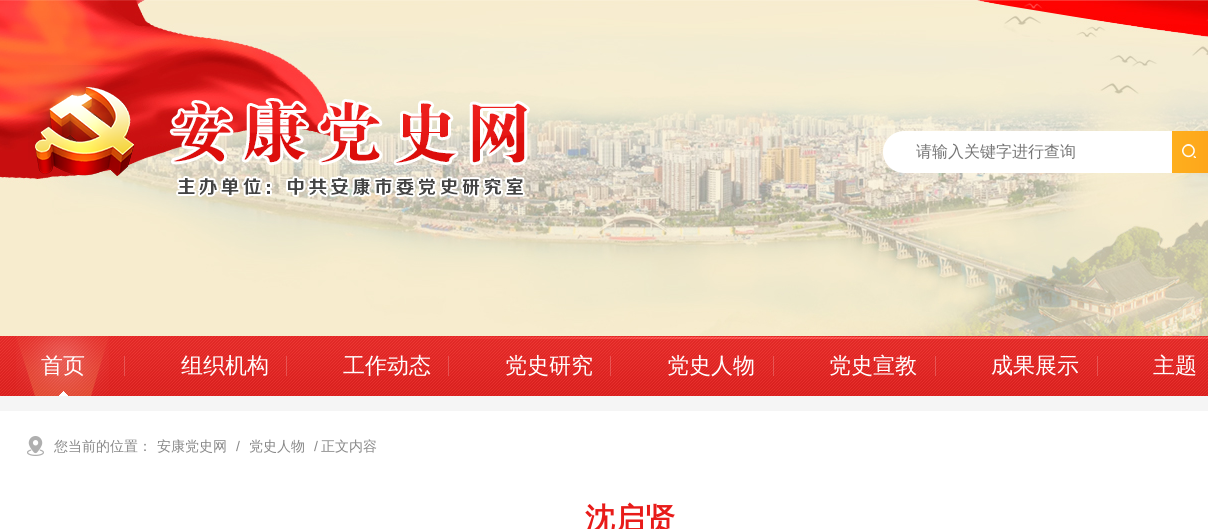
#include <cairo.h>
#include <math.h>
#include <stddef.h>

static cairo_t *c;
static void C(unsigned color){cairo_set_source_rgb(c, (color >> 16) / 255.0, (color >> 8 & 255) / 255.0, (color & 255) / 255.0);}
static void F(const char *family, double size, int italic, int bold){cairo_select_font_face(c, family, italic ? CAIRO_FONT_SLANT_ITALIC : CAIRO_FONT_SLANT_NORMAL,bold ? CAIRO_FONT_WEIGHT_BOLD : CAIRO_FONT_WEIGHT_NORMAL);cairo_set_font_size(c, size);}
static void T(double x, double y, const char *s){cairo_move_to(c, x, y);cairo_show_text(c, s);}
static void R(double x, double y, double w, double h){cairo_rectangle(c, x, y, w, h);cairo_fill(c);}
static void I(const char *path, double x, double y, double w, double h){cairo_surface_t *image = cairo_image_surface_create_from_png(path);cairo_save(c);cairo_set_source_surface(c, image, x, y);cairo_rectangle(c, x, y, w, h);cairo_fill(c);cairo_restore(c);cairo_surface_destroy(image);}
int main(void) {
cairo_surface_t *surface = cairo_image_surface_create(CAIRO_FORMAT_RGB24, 1208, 529);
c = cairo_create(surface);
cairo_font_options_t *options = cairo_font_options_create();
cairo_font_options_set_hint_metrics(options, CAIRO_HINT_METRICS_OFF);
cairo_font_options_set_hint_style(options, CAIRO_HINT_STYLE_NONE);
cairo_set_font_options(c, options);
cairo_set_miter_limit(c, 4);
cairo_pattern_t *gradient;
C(0xf5f5f5);
cairo_paint(c);
I("1.png",0,0,1208,336);
I("2.png",28,65,502,133);
C(0xffffff);
cairo_new_path(c);
cairo_move_to(c,904,131);
cairo_line_to(c,1174,131);
cairo_line_to(c,1174,173);
cairo_line_to(c,904,173);
cairo_curve_to(c,892.5,173,883,163.5,883,152);
cairo_curve_to(c,883,140.5,892.5,131,904,131);
cairo_close_path(c);
cairo_fill(c);
F("WenQuanYi Zen Hei Medium",16,0,0);
C(0x757575);
T(916,157,"请输入关键字进行查询");
gradient = cairo_pattern_create_linear(1172,152,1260,152);
cairo_pattern_add_color_stop_rgba(gradient,0,0.996,0.686,0.114,1);
cairo_pattern_add_color_stop_rgba(gradient,1,0.996,0.604,0.094,1);
cairo_set_source(c,gradient);
cairo_pattern_destroy(gradient);
R(1172,131,36,42);
I("3.png",1182,144,14,14);
I("4.png",0,336,1208,60);
cairo_set_source_rgba(c,1,1,1,0.2);
R(124,356,1,20);
I("5.png",16,336,93,60);
F("WenQuanYi Zen Hei Medium",22,0,0);
C(0xffffff);
T(41,373,"首页");
cairo_set_source_rgba(c,1,1,1,0.2);
R(286,356,1,20);
C(0xffffff);
T(181,373,"组织机构");
cairo_set_source_rgba(c,1,1,1,0.2);
R(448,356,1,20);
C(0xffffff);
T(343,373,"工作动态");
cairo_set_source_rgba(c,1,1,1,0.2);
R(610,356,1,20);
C(0xffffff);
T(505,373,"党史研究");
cairo_set_source_rgba(c,1,1,1,0.2);
R(773,356,1,20);
C(0xffffff);
T(667,373,"党史人物");
cairo_set_source_rgba(c,1,1,1,0.2);
R(935,356,1,20);
C(0xffffff);
T(829,373,"党史宣教");
cairo_set_source_rgba(c,1,1,1,0.2);
R(1097,356,1,20);
C(0xffffff);
T(991,373,"成果展示");
T(1153,373,"主题");
R(0,411,1208,118);
I("6.png",27,436,17,20);
F("WenQuanYi Zen Hei Medium",14,0,0);
C(0x888888);
T(54,451,"您当前的位置：");
T(157,451,"安康党史网");
F("Liberation Sans",14,0,0);
T(236,451,"/");
F("WenQuanYi Zen Hei Medium",14,0,0);
T(249,451,"党史人物");
F("Liberation Sans",14,0,0);
T(314,451,"/");
F("WenQuanYi Zen Hei Medium",14,0,0);
T(321,451,"正文内容");
F("WenQuanYi Zen Hei",30,0,1);
C(0xe81b19);
T(585,529,"沈启贤");
cairo_surface_write_to_png(surface, "o.png");
cairo_font_options_destroy(options);
cairo_destroy(c);
cairo_surface_destroy(surface);
return 0;
}
